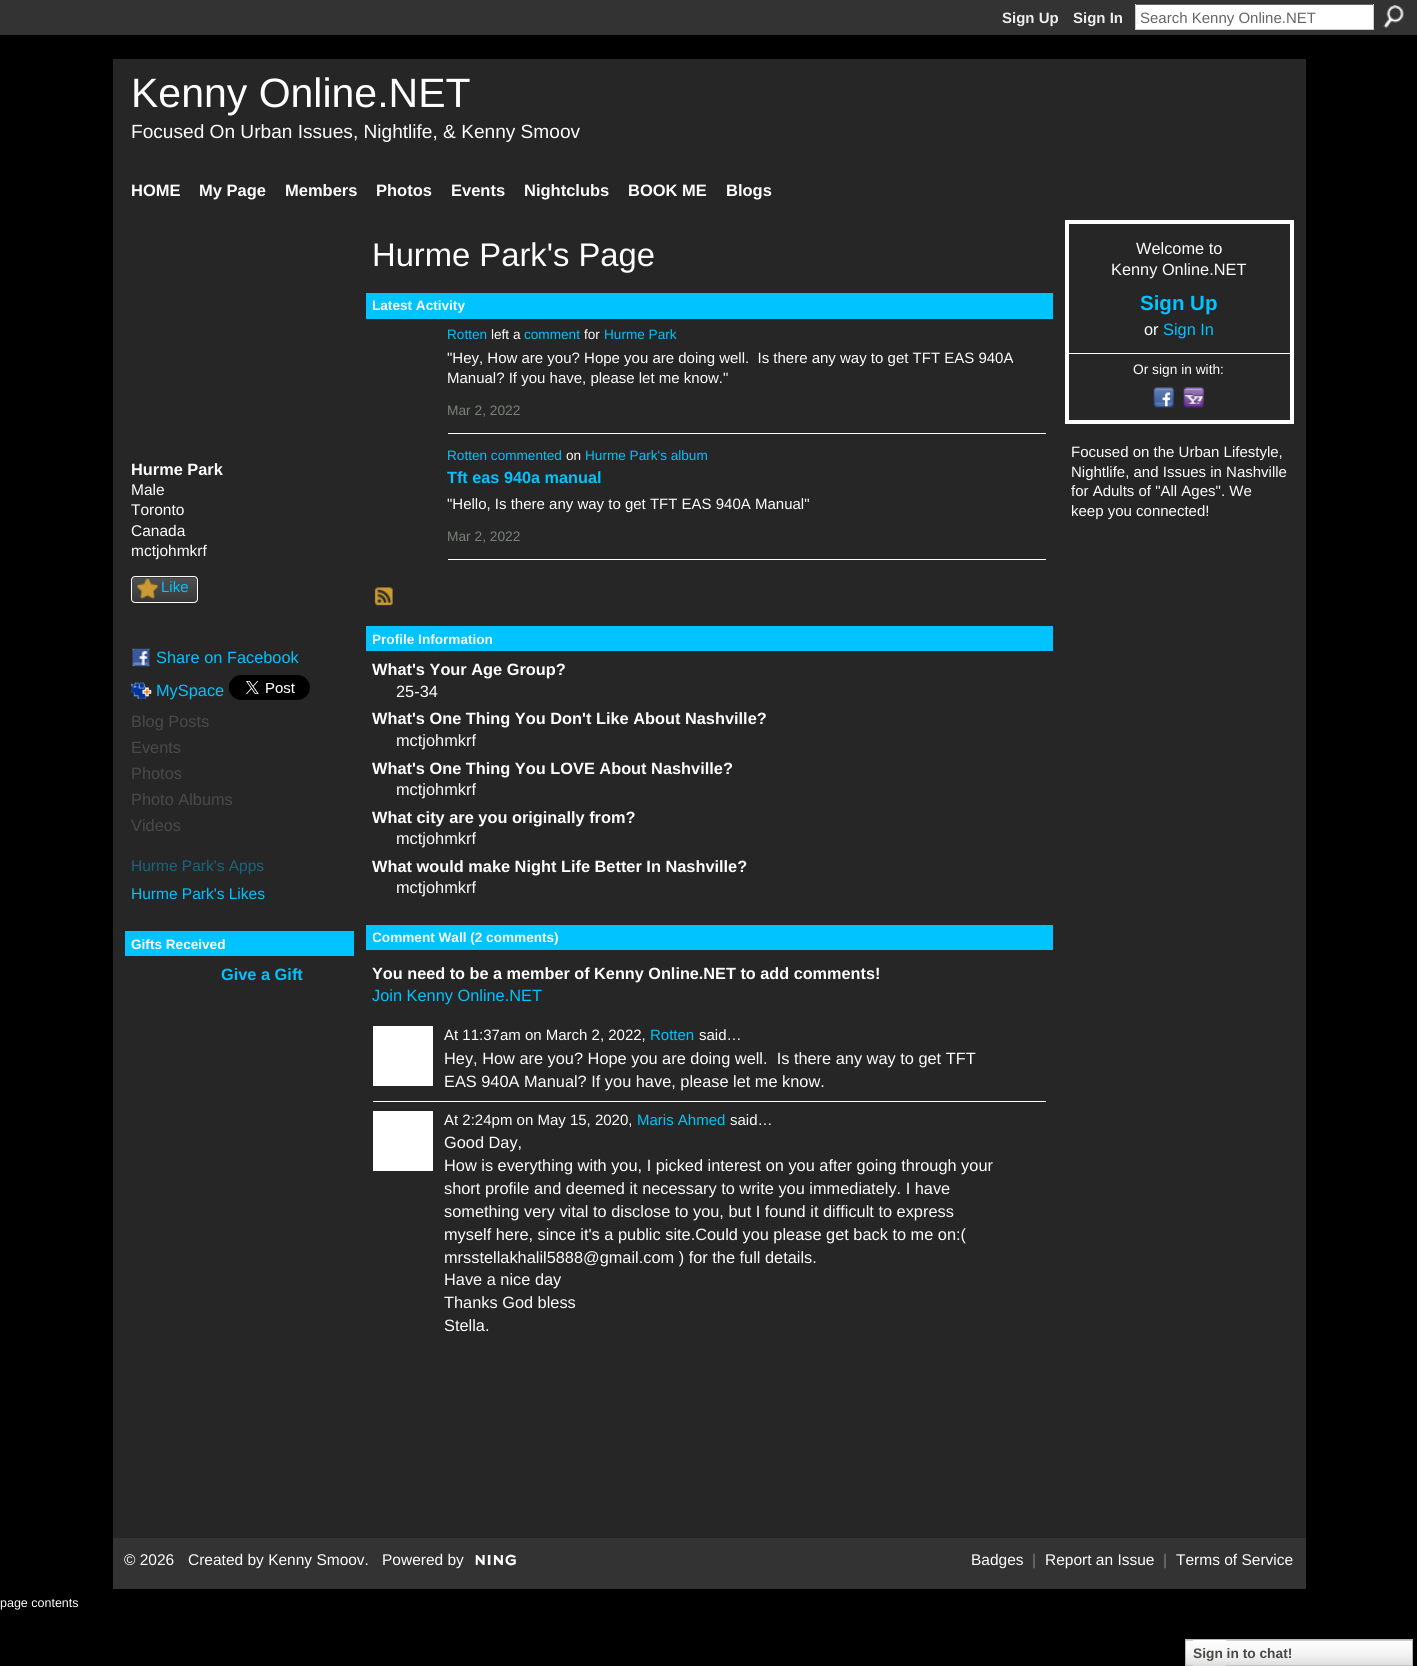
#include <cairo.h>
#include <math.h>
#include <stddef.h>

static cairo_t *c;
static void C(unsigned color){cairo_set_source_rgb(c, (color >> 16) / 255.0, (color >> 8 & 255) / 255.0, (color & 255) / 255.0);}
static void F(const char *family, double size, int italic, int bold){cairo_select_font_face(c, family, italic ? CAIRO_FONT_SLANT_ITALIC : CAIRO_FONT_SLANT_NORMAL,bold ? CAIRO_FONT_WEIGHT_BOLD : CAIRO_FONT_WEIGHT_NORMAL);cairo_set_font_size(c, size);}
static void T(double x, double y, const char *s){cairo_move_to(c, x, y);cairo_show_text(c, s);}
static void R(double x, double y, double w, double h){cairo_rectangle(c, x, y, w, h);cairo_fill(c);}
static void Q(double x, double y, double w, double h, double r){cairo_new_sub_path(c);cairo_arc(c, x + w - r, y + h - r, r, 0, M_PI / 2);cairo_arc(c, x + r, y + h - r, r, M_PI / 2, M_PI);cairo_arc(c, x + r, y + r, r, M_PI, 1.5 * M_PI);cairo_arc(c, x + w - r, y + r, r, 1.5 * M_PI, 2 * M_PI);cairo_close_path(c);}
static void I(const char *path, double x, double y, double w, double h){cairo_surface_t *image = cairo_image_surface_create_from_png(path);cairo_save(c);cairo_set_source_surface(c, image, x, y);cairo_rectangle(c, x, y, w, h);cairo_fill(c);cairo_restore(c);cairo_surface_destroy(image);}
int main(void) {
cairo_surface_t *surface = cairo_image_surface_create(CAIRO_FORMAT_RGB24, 1417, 1666);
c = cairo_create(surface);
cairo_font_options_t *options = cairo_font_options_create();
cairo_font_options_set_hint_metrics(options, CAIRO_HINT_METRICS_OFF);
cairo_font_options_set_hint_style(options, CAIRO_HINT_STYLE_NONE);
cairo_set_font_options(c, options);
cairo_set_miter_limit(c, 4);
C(0x000000);
cairo_paint(c);
C(0x333333);
R(0,0,1417,35);
F("Liberation Sans",15,0,1);
C(0xeeeeee);
T(1002,23,"Sign Up");
T(1073,23,"Sign In");
C(0xffffff);
R(1136,5,237,24);
C(0x666666);
R(1135,4,239,1);
C(0xcccccc);
R(1373,4,1,26);
R(1135,29,239,1);
R(1135,4,1,26);
F("Liberation Sans",15,0,0);
C(0x666666);
T(1140,23,"Search Kenny Online.NET");
I("1.png",1383,5,21,23);
C(0x262626);
R(113,59,1193,1479);
F("Liberation Sans",41,0,0);
C(0xffffff);
T(131,107,"Kenny Online.NET");
F("Liberation Sans",19.1,0,0);
T(131,138,"Focused On Urban Issues, Nightlife, & Kenny Smoov");
F("Liberation Sans",16.5,0,1);
T(131,196,"HOME");
T(199,196,"My Page");
T(285,196,"Members");
T(376,196,"Photos");
T(451,196,"Events");
T(524,196,"Nightclubs");
T(628,196,"BOOK ME");
T(726,196,"Blogs");
F("Liberation Sans",16.35,0,1);
T(131,475,"Hurme Park");
F("Liberation Sans",15.5,0,0);
T(131,495,"Male");
T(131,515,"Toronto");
T(131,536,"Canada");
T(131,556,"mctjohmkrf");
I("2.png",131,577,67,26);
Q(131.5,576.5,66,26,3.5);
cairo_set_line_width(c,1);
cairo_stroke(c);
I("3.png",137,578,21,21);
F("Liberation Sans",15,0,0);
C(0x00c3ff);
T(161,592,"Like");
I("4.png",132,648,19,19);
F("Liberation Sans",16.35,0,0);
T(156,663,"Share on Facebook");
I("5.png",131,682,21,17);
T(156,696,"MySpace");
I("6.png",229,675,81,25);
C(0x484a48);
T(131,727,"Blog Posts");
T(131,753,"Events");
T(131,779,"Photos");
T(131,805,"Photo Albums");
T(131,831,"Videos");
F("Liberation Sans",15.5,0,0);
C(0x17657d);
T(131,871,"Hurme Park's Apps");
C(0x00c3ff);
T(131,899,"Hurme Park's Likes");
R(125,931,229,25);
F("Liberation Sans",13.6,0,1);
C(0xffffff);
T(131,949,"Gifts Received");
F("Liberation Sans",16.35,0,1);
C(0x00c3ff);
T(221,980,"Give a Gift");
F("Liberation Sans",32.75,0,0);
C(0xffffff);
T(372,266,"Hurme Park's Page");
C(0x00c3ff);
R(366,293,687,26);
cairo_save(c);
cairo_rectangle(c,373,296,92,19);
cairo_clip(c);
F("Liberation Sans",13.6,0,1);
C(0xffffff);
T(372,310,"Latest Activity");
cairo_restore(c);
C(0xffffff);
R(448,433,598,1);
F("Liberation Sans",13.6,0,0);
C(0x00c3ff);
T(447,339,"Rotten");
C(0xffffff);
T(491,339,"left a");
C(0x00c3ff);
T(524,339,"comment");
C(0xffffff);
T(584,339,"for");
C(0x00c3ff);
T(604,339,"Hurme Park");
F("Liberation Sans",15,0,0);
C(0xffffff);
T(447,363,"\"Hey, How are you? Hope you are doing well.  Is there any way to get TFT EAS 940A");
T(447,383,"Manual? If you have, please let me know.\"");
F("Liberation Sans",13.75,0,0);
C(0x7b807b);
T(447,415,"Mar 2, 2022");
C(0xffffff);
R(448,559,598,1);
F("Liberation Sans",13.6,0,0);
C(0x00c3ff);
T(447,460,"Rotten commented");
C(0xffffff);
T(566,460,"on");
C(0x00c3ff);
T(585,460,"Hurme Park's album");
F("Liberation Sans",16.25,0,1);
T(447,483,"Tft eas 940a manual");
F("Liberation Sans",15,0,0);
C(0xffffff);
T(447,509,"\"Hello, Is there any way to get TFT EAS 940A Manual\"");
F("Liberation Sans",13.75,0,0);
C(0x7b807b);
T(447,541,"Mar 2, 2022");
I("7.png",374,587,19,19);
C(0x00c3ff);
R(366,626,687,25);
cairo_save(c);
cairo_rectangle(c,373,630,120,18);
cairo_clip(c);
F("Liberation Sans",13.6,0,1);
C(0xffffff);
T(372,644,"Profile Information");
cairo_restore(c);
F("Liberation Sans",16.35,0,1);
C(0xffffff);
T(372,675,"What's Your Age Group?");
F("Liberation Sans",16.35,0,0);
T(396,697,"25-34");
F("Liberation Sans",16.35,0,1);
T(372,724,"What's One Thing You Don't Like About Nashville?");
F("Liberation Sans",16.35,0,0);
T(396,746,"mctjohmkrf");
F("Liberation Sans",16.35,0,1);
T(372,774,"What's One Thing You LOVE About Nashville?");
F("Liberation Sans",16.35,0,0);
T(396,795,"mctjohmkrf");
F("Liberation Sans",16.35,0,1);
T(372,823,"What city are you originally from?");
F("Liberation Sans",16.35,0,0);
T(396,844,"mctjohmkrf");
F("Liberation Sans",16.35,0,1);
T(372,872,"What would make Night Life Better In Nashville?");
F("Liberation Sans",16.35,0,0);
T(396,893,"mctjohmkrf");
C(0x00c3ff);
R(366,925,687,25);
cairo_save(c);
cairo_rectangle(c,373,929,186,17);
cairo_clip(c);
F("Liberation Sans",13.6,0,1);
C(0xffffff);
T(372,942,"Comment Wall (2 comments)");
cairo_restore(c);
F("Liberation Sans",16.25,0,1);
C(0xffffff);
T(372,979,"You need to be a member of Kenny Online.NET to add comments!");
F("Liberation Sans",16.35,0,0);
C(0x00c3ff);
T(372,1001,"Join Kenny Online.NET");
C(0xffffff);
R(373,1101,673,1);
F("Liberation Sans",15,0,0);
T(444,1040,"At 11:37am on March 2, 2022,");
R(373,1026,60,60);
C(0x00c3ff);
T(650,1040,"Rotten");
C(0xffffff);
T(699,1040,"said…");
F("Liberation Sans",16.35,0,0);
T(444,1064,"Hey, How are you? Hope you are doing well.  Is there any way to get TFT");
T(444,1087,"EAS 940A Manual? If you have, please let me know.");
F("Liberation Sans",15,0,0);
T(444,1125,"At 2:24pm on May 15, 2020,");
R(373,1111,60,60);
C(0x00c3ff);
T(637,1125,"Maris Ahmed");
C(0xffffff);
T(730,1125,"said…");
F("Liberation Sans",16.35,0,0);
T(444,1148,"Good Day,");
T(444,1171,"How is everything with you, I picked interest on you after going through your");
T(444,1194,"short profile and deemed it necessary to write you immediately. I have");
T(444,1217,"something very vital to disclose to you, but I found it difficult to express");
T(444,1240,"myself here, since it's a public site.Could you please get back to me on:(");
T(444,1263,"mrsstellakhalil5888@gmail.com ) for the full details.");
T(444,1285,"Have a nice day");
T(444,1308,"Thanks God bless");
T(444,1331,"Stella.");
cairo_rectangle(c,1067,222,225,200);
cairo_set_line_width(c,4);
cairo_stroke(c);
T(1136,254,"Welcome to");
T(1111,275,"Kenny Online.NET");
F("Liberation Sans",20.5,0,1);
C(0x00c3ff);
T(1140,310,"Sign Up");
F("Liberation Sans",16.35,0,0);
C(0xffffff);
T(1144,335,"or");
C(0x00c3ff);
T(1163,335,"Sign In");
C(0xffffff);
R(1069,353,221,1);
F("Liberation Sans",13.75,0,0);
T(1133,374,"Or sign in with:");
I("8.png",1153,387,21,21);
I("9.png",1183,387,21,21);
F("Liberation Sans",15,0,0);
T(1071,457,"Focused on the Urban Lifestyle,");
T(1071,477,"Nightlife, and Issues in Nashville");
T(1071,496,"for Adults of \"All Ages\". We");
T(1071,516,"keep you connected!");
C(0x333333);
R(113,1538,1193,51);
F("Liberation Sans",15.5,0,0);
C(0xffffff);
T(124,1565,"© 2026");
T(188,1565,"Created by Kenny Smoov.");
T(382,1565,"Powered by");
I("10.png",475,1554,41,12);
T(971,1565,"Badges");
C(0x7b807b);
T(1032,1565,"|");
C(0xffffff);
T(1045,1565,"Report an Issue");
C(0x7b807b);
T(1163,1565,"|");
C(0xffffff);
T(1176,1565,"Terms of Service");
F("Liberation Sans",12.5,0,0);
T(0,1607,"page contents");
I("11.png",1186,1640,226,26);
cairo_rectangle(c,1185.5,1639.5,227,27);
C(0xb7b7b7);
cairo_set_line_width(c,1);
cairo_stroke(c);
I("12.png",1192,1640,35,26);
F("Liberation Sans",13.75,0,1);
C(0x484a48);
T(1193,1658,"Sign in to chat!");
cairo_surface_write_to_png(surface, "o.png");
cairo_font_options_destroy(options);
cairo_destroy(c);
cairo_surface_destroy(surface);
return 0;
}
